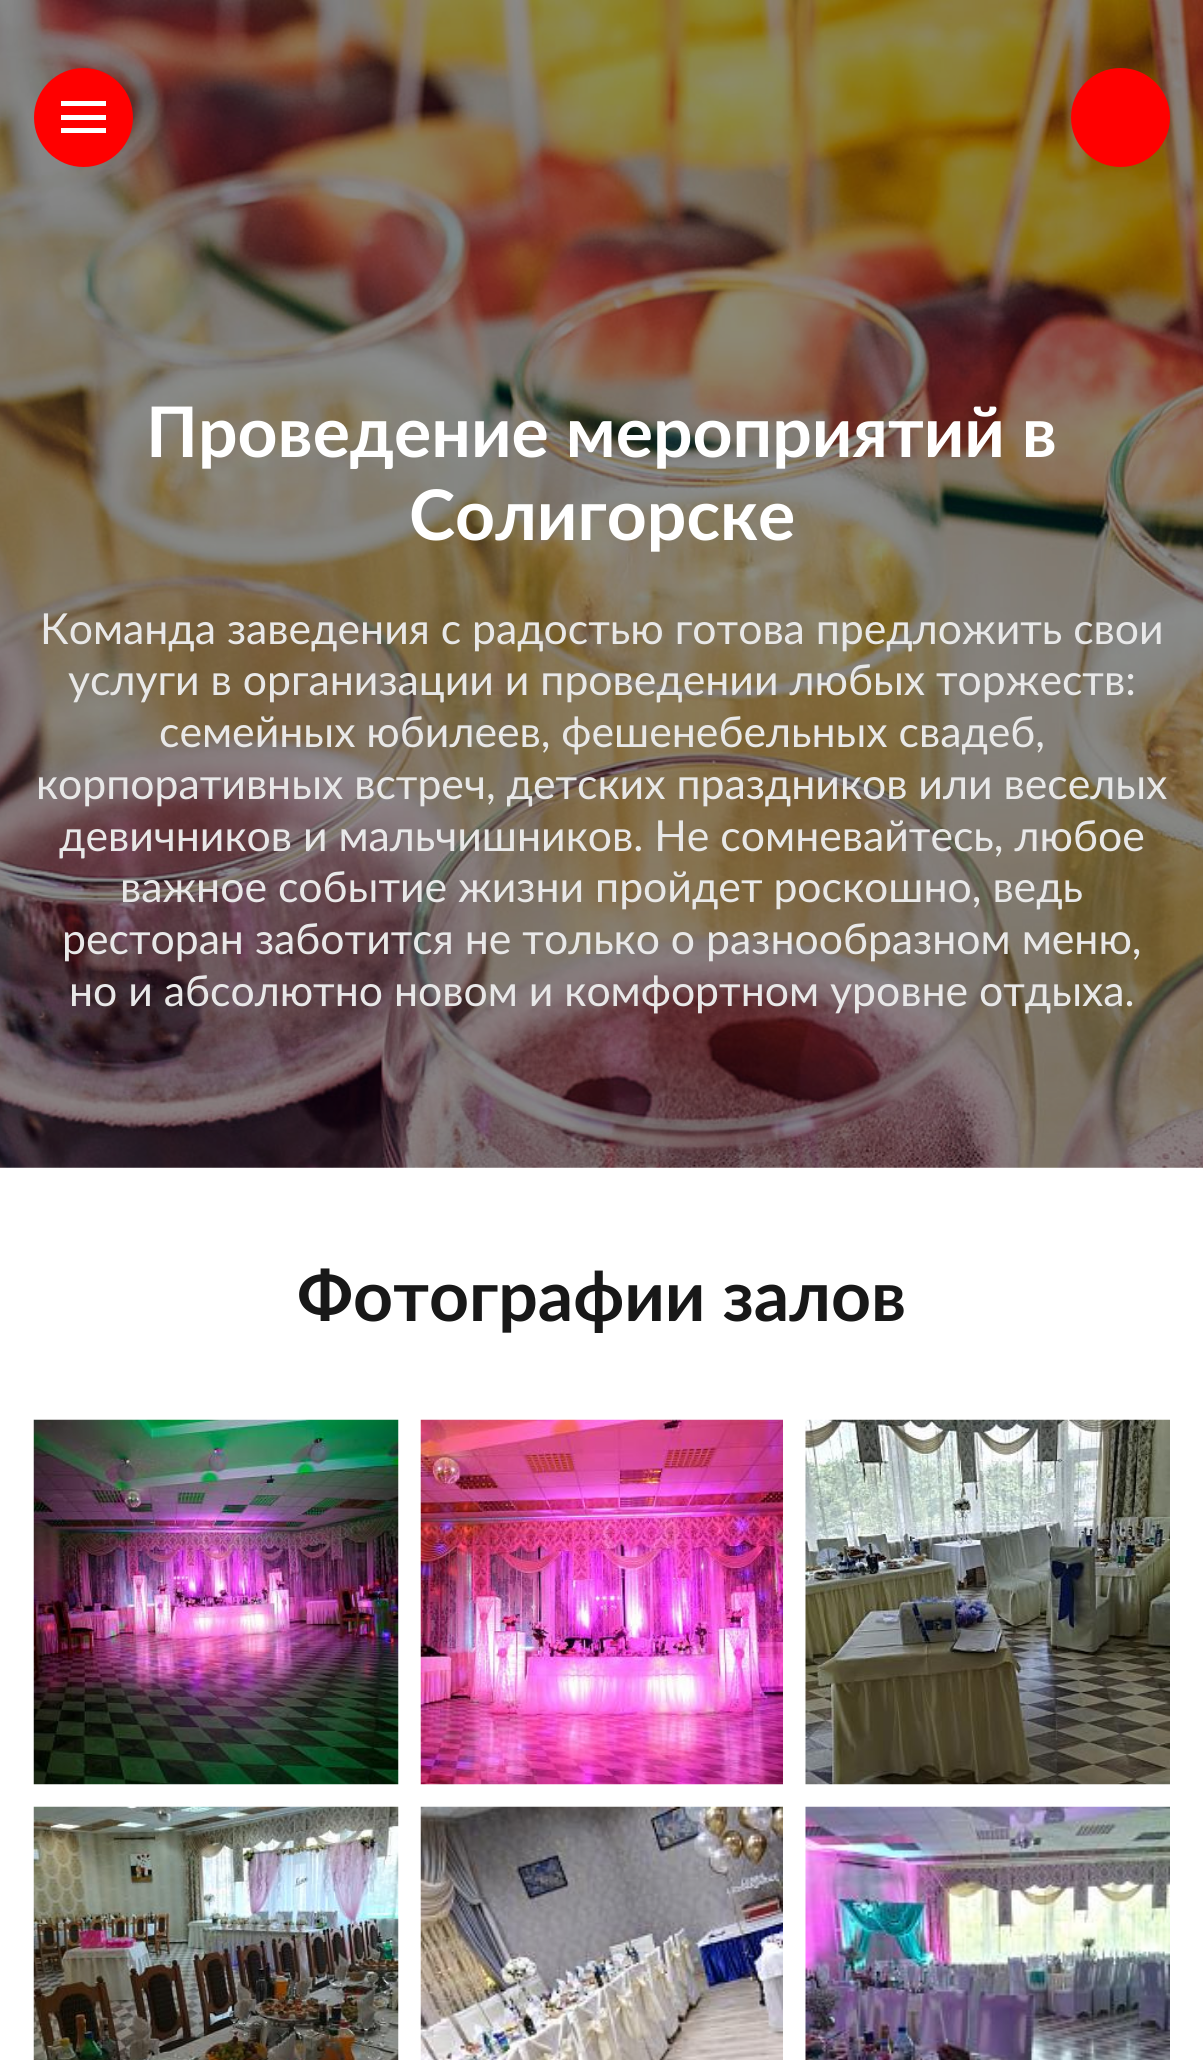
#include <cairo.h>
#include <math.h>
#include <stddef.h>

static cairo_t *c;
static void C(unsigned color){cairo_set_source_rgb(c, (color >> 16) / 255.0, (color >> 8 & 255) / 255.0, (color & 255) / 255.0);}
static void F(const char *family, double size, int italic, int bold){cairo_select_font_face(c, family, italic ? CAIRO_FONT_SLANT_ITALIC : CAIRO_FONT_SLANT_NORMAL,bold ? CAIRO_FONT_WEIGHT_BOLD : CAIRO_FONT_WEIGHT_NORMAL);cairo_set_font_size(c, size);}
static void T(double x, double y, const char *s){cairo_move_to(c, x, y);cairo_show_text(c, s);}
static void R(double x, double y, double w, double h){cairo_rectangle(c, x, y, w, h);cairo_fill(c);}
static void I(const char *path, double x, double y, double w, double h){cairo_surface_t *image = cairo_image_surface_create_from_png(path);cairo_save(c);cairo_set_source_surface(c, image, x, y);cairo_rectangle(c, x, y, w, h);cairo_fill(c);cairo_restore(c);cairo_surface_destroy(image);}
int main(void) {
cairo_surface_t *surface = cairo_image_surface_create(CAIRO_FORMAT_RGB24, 1203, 2060);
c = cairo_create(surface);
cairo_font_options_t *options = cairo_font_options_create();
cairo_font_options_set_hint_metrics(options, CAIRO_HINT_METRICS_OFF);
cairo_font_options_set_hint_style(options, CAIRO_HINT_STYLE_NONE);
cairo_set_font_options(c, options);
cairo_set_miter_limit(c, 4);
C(0xffffff);
cairo_paint(c);
I("1.png",0,0,1203,1168);
C(0xff0000);
cairo_arc(c,83.5,117.5,49.5,0,2 * M_PI);
cairo_fill(c);
C(0xffffff);
R(61,101,45,5);
R(61,115,45,5);
R(61,128,45,5);
C(0xff0000);
cairo_arc(c,1120.5,117.5,49.5,0,2 * M_PI);
cairo_fill(c);
F("Lato",69.75,0,1);
C(0xffffff);
T(146,457,"Проведение мероприятий в");
T(409,540,"Солигорске");
F("Lato",42.75,0,0);
C(0xe8e8e8);
T(40,644,"Команда заведения с радостью готова предложить свои");
T(68,695,"услуги в организации и проведении любых торжеств:");
T(159,747,"семейных юбилеев, фешенебельных свадеб,");
T(36,799,"корпоративных встреч, детских праздников или веселых");
T(59,851,"девичников и мальчишников. Не сомневайтесь, любое");
T(120,902,"важное событие жизни пройдет роскошно, ведь");
T(62,954,"ресторан заботится не только о разнообразном меню,");
T(69,1006,"но и абсолютно новом и комфортном уровне отдыха.");
F("Lato",69.75,0,1);
C(0x181818);
T(297,1321,"Фотографии залов");
I("2.png",33,1419,366,366);
I("3.png",420,1419,363,366);
I("4.png",805,1419,365,366);
I("5.png",33,1806,366,254);
I("6.png",420,1806,363,254);
I("7.png",805,1806,365,254);
cairo_surface_write_to_png(surface, "o.png");
cairo_font_options_destroy(options);
cairo_destroy(c);
cairo_surface_destroy(surface);
return 0;
}
